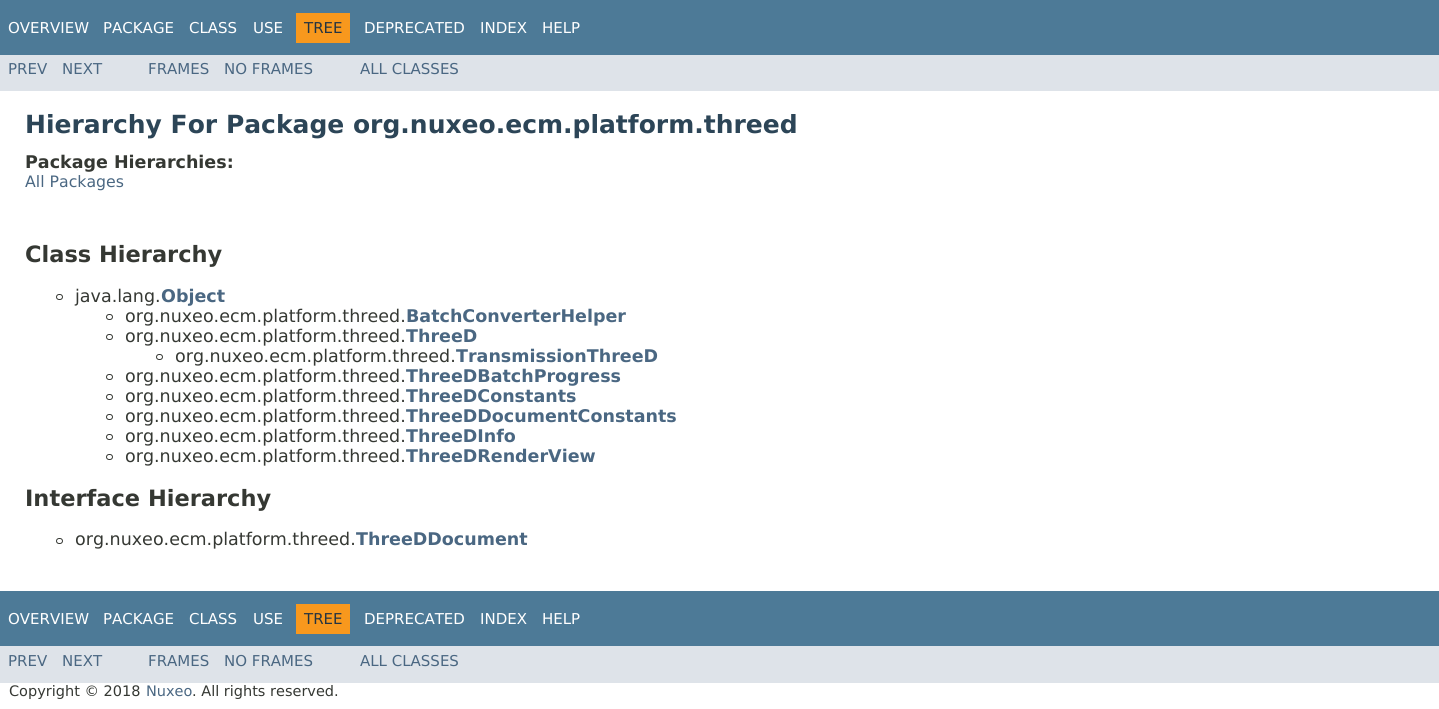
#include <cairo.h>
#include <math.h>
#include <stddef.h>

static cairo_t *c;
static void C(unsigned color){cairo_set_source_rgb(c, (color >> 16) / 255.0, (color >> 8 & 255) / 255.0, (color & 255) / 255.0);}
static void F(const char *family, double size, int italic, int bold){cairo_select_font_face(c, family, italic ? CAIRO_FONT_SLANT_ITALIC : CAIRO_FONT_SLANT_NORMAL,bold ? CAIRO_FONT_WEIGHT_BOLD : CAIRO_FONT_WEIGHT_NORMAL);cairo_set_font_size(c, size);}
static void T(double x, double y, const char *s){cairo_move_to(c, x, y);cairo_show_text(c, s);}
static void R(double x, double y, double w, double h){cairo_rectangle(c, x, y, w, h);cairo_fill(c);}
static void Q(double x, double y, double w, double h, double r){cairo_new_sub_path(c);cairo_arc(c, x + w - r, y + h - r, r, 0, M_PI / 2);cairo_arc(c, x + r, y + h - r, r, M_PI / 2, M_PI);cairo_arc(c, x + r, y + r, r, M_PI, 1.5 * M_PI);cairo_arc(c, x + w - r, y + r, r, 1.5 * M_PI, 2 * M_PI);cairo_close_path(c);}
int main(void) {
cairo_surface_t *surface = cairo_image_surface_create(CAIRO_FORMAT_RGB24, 1439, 709);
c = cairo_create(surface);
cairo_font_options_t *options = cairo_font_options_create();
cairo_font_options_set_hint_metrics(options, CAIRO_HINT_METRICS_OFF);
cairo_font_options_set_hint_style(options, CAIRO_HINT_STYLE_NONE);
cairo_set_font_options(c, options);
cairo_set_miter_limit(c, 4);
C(0xffffff);
cairo_paint(c);
C(0x4d7a97);
R(0,0,1439,55);
F("DejaVu Sans",15,0,0);
C(0xffffff);
T(8,33,"OVERVIEW");
T(103,33,"PACKAGE");
T(189,33,"CLASS");
T(253,33,"USE");
C(0xf8981d);
R(296,13,54,30);
C(0x253441);
T(304,33,"TREE");
C(0xffffff);
T(364,33,"DEPRECATED");
T(480,33,"INDEX");
T(542,33,"HELP");
C(0xdee3e9);
R(0,55,1439,36);
C(0x4a6782);
T(8,74,"PREV");
T(62,74,"NEXT");
T(148,74,"FRAMES");
T(224,74,"NO FRAMES");
T(360,74,"ALL CLASSES");
F("DejaVu Sans",25,0,1);
C(0x2c4557);
T(25,133,"Hierarchy For Package org.nuxeo.ecm.platform.threed");
F("DejaVu Sans",17.5,0,1);
C(0x353833);
T(25,168,"Package Hierarchies:");
F("DejaVu Sans",15.75,0,0);
C(0x4a6782);
T(25,187,"All Packages");
F("DejaVu Sans",22.5,0,1);
C(0x353833);
T(25,262,"Class Hierarchy");
Q(56.5,294.5,6,5,2.5);
cairo_set_line_width(c,1);
cairo_stroke(c);
F("DejaVu Sans",17.5,0,0);
T(75,302,"java.lang.");
F("DejaVu Sans",17.5,0,1);
C(0x4a6782);
T(161,302,"Object");
Q(106.5,314.5,6,5,2.5);
C(0x353833);
cairo_stroke(c);
F("DejaVu Sans",17.5,0,0);
T(125,322,"org.nuxeo.ecm.platform.threed.");
F("DejaVu Sans",17.5,0,1);
C(0x4a6782);
T(406,322,"BatchConverterHelper");
Q(106.5,334.5,6,5,2.5);
C(0x353833);
cairo_stroke(c);
F("DejaVu Sans",17.5,0,0);
T(125,342,"org.nuxeo.ecm.platform.threed.");
F("DejaVu Sans",17.5,0,1);
C(0x4a6782);
T(406,342,"ThreeD");
Q(156.5,354.5,6,5,2.5);
C(0x353833);
cairo_stroke(c);
F("DejaVu Sans",17.5,0,0);
T(175,362,"org.nuxeo.ecm.platform.threed.");
F("DejaVu Sans",17.5,0,1);
C(0x4a6782);
T(456,362,"TransmissionThreeD");
Q(106.5,374.5,6,5,2.5);
C(0x353833);
cairo_stroke(c);
F("DejaVu Sans",17.5,0,0);
T(125,382,"org.nuxeo.ecm.platform.threed.");
F("DejaVu Sans",17.5,0,1);
C(0x4a6782);
T(406,382,"ThreeDBatchProgress");
Q(106.5,394.5,6,5,2.5);
C(0x353833);
cairo_stroke(c);
F("DejaVu Sans",17.5,0,0);
T(125,402,"org.nuxeo.ecm.platform.threed.");
F("DejaVu Sans",17.5,0,1);
C(0x4a6782);
T(406,402,"ThreeDConstants");
Q(106.5,414.5,6,5,2.5);
C(0x353833);
cairo_stroke(c);
F("DejaVu Sans",17.5,0,0);
T(125,422,"org.nuxeo.ecm.platform.threed.");
F("DejaVu Sans",17.5,0,1);
C(0x4a6782);
T(406,422,"ThreeDDocumentConstants");
Q(106.5,434.5,6,5,2.5);
C(0x353833);
cairo_stroke(c);
F("DejaVu Sans",17.5,0,0);
T(125,442,"org.nuxeo.ecm.platform.threed.");
F("DejaVu Sans",17.5,0,1);
C(0x4a6782);
T(406,442,"ThreeDInfo");
Q(106.5,454.5,6,5,2.5);
C(0x353833);
cairo_stroke(c);
F("DejaVu Sans",17.5,0,0);
T(125,462,"org.nuxeo.ecm.platform.threed.");
F("DejaVu Sans",17.5,0,1);
C(0x4a6782);
T(406,462,"ThreeDRenderView");
F("DejaVu Sans",22.5,0,1);
C(0x353833);
T(25,506,"Interface Hierarchy");
Q(56.5,538.5,6,5,2.5);
cairo_stroke(c);
F("DejaVu Sans",17.5,0,0);
T(75,545,"org.nuxeo.ecm.platform.threed.");
F("DejaVu Sans",17.5,0,1);
C(0x4a6782);
T(356,545,"ThreeDDocument");
C(0x4d7a97);
R(0,591,1439,55);
F("DejaVu Sans",15,0,0);
C(0xffffff);
T(8,624,"OVERVIEW");
T(103,624,"PACKAGE");
T(189,624,"CLASS");
T(253,624,"USE");
C(0xf8981d);
R(296,604,54,30);
C(0x253441);
T(304,624,"TREE");
C(0xffffff);
T(364,624,"DEPRECATED");
T(480,624,"INDEX");
T(542,624,"HELP");
C(0xdee3e9);
R(0,646,1439,37);
C(0x4a6782);
T(8,666,"PREV");
T(62,666,"NEXT");
T(148,666,"FRAMES");
T(224,666,"NO FRAMES");
T(360,666,"ALL CLASSES");
F("DejaVu Sans",14.5,0,0);
C(0x353833);
T(9,696,"Copyright © 2018");
C(0x4a6782);
T(146,696,"Nuxeo");
C(0x353833);
T(192,696,". All rights reserved.");
cairo_surface_write_to_png(surface, "o.png");
cairo_font_options_destroy(options);
cairo_destroy(c);
cairo_surface_destroy(surface);
return 0;
}
